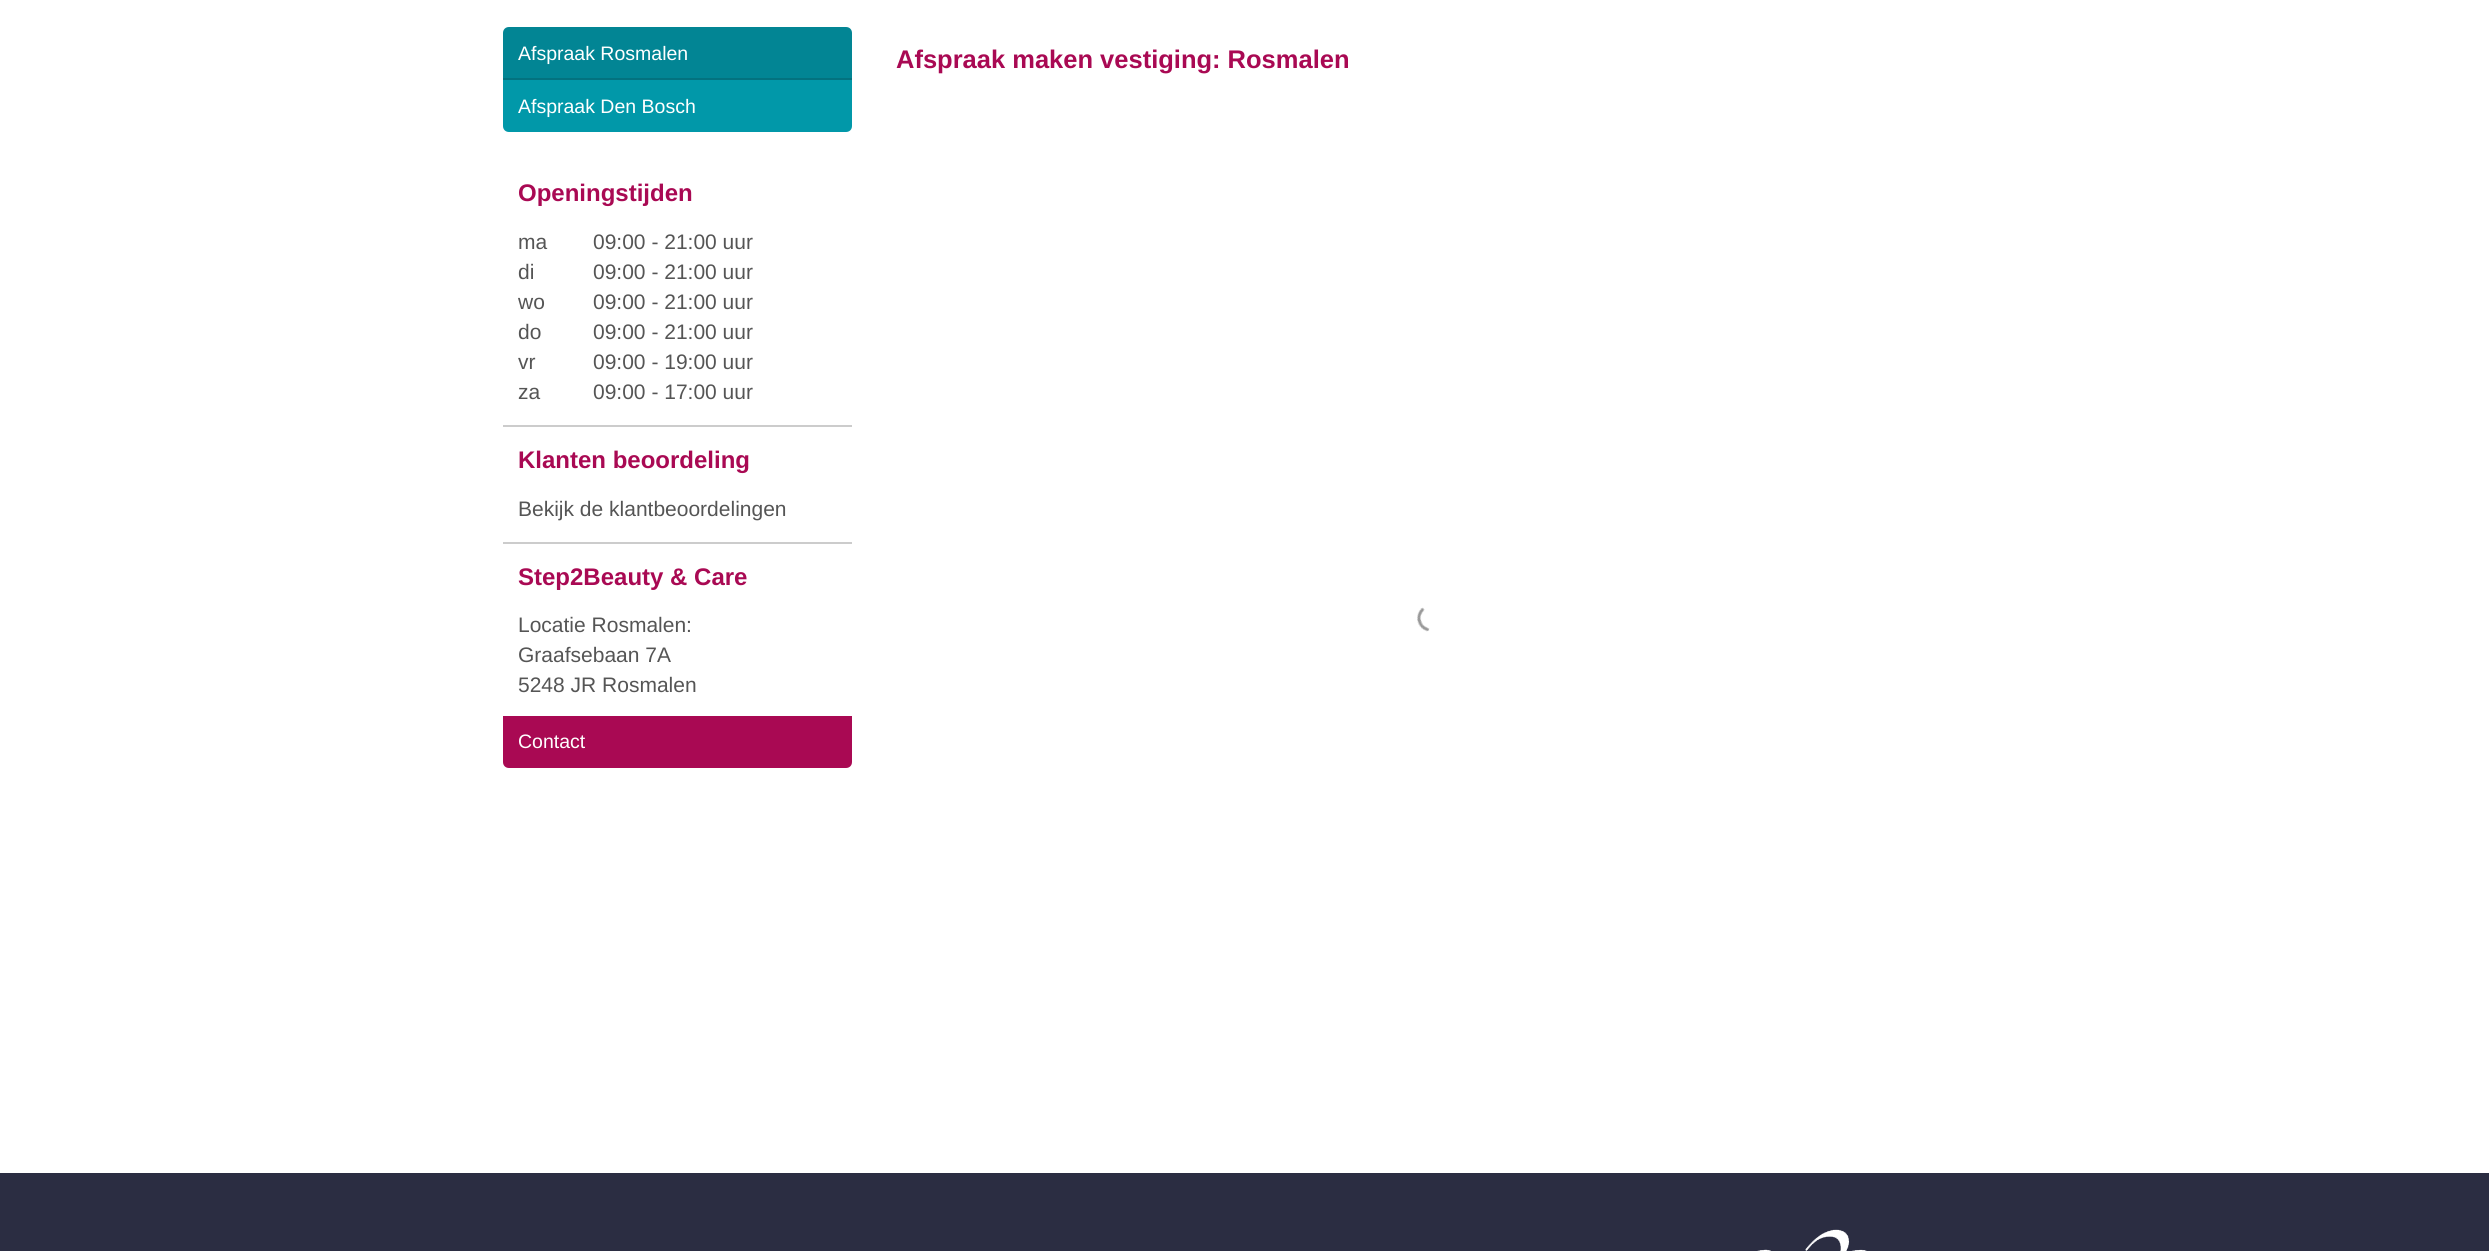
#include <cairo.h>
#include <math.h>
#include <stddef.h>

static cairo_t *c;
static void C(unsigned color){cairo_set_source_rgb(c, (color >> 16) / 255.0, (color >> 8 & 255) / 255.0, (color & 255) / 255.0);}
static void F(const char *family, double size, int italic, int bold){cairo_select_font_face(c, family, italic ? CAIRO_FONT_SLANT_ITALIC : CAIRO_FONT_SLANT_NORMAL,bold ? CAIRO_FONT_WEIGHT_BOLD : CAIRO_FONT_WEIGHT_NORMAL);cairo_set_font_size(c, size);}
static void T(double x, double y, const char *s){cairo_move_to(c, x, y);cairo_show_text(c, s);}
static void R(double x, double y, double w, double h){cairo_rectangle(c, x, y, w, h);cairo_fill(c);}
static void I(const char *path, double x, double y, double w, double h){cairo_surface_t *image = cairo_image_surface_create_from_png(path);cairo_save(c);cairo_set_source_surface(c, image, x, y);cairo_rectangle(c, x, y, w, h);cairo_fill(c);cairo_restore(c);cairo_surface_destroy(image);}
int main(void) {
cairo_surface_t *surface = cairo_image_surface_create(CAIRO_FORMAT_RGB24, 2489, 1251);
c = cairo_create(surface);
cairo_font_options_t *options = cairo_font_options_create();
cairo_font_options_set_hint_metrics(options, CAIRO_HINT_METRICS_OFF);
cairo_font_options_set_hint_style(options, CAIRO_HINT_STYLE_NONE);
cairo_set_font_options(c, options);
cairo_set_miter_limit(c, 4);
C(0x2b2d42);
cairo_paint(c);
C(0xffffff);
R(0,0,2489,1173);
C(0x028594);
cairo_new_path(c);
cairo_move_to(c,509,27);
cairo_line_to(c,846,27);
cairo_curve_to(c,849.5,27,852,29.5,852,33);
cairo_line_to(c,852,80);
cairo_line_to(c,503,80);
cairo_line_to(c,503,33);
cairo_curve_to(c,503,29.5,505.5,27,509,27);
cairo_close_path(c);
cairo_fill(c);
C(0x03727f);
R(503,78,349,2);
F("Liberation Sans",19.5,0,0);
C(0xffffff);
T(518,60,"Afspraak Rosmalen");
C(0x0198a9);
cairo_new_path(c);
cairo_move_to(c,503,80);
cairo_line_to(c,852,80);
cairo_line_to(c,852,126);
cairo_curve_to(c,852,129.5,849.5,132,846,132);
cairo_line_to(c,509,132);
cairo_curve_to(c,505.5,132,503,129.5,503,126);
cairo_close_path(c);
cairo_fill(c);
C(0xffffff);
T(518,113,"Afspraak Den Bosch");
F("Liberation Sans",24,0,1);
C(0xa90953);
T(518,201,"Openingstijden");
F("Liberation Sans",21,0,0);
C(0x555555);
T(518,249,"ma");
T(593,249,"09:00 - 21:00 uur");
T(518,279,"di");
T(593,279,"09:00 - 21:00 uur");
T(518,309,"wo");
T(593,309,"09:00 - 21:00 uur");
T(518,339,"do");
T(593,339,"09:00 - 21:00 uur");
T(518,369,"vr");
T(593,369,"09:00 - 19:00 uur");
T(518,399,"za");
T(593,399,"09:00 - 17:00 uur");
C(0xcccccc);
R(503,425,349,2);
F("Liberation Sans",24,0,1);
C(0xa90953);
T(518,468,"Klanten beoordeling");
F("Liberation Sans",21,0,0);
C(0x555555);
T(518,516,"Bekijk de klantbeoordelingen");
C(0xcccccc);
R(503,542,349,2);
F("Liberation Sans",24,0,1);
C(0xa90953);
T(518,585,"Step2Beauty & Care");
F("Liberation Sans",21,0,0);
C(0x555555);
T(518,632,"Locatie Rosmalen:");
T(518,662,"Graafsebaan 7A");
T(518,692,"5248 JR Rosmalen");
C(0xa90953);
cairo_new_path(c);
cairo_move_to(c,503,716);
cairo_line_to(c,852,716);
cairo_line_to(c,852,762);
cairo_curve_to(c,852,765.5,849.5,768,846,768);
cairo_line_to(c,509,768);
cairo_curve_to(c,505.5,768,503,765.5,503,762);
cairo_close_path(c);
cairo_fill(c);
F("Liberation Sans",19.5,0,0);
C(0xffffff);
T(518,748,"Contact");
F("Liberation Sans",25.5,0,1);
C(0xa90953);
T(896,68,"Afspraak maken vestiging: Rosmalen");
I("1.png",1417,607,13,25);
I("2.png",1757,1229,110,22);
cairo_surface_write_to_png(surface, "o.png");
cairo_font_options_destroy(options);
cairo_destroy(c);
cairo_surface_destroy(surface);
return 0;
}
